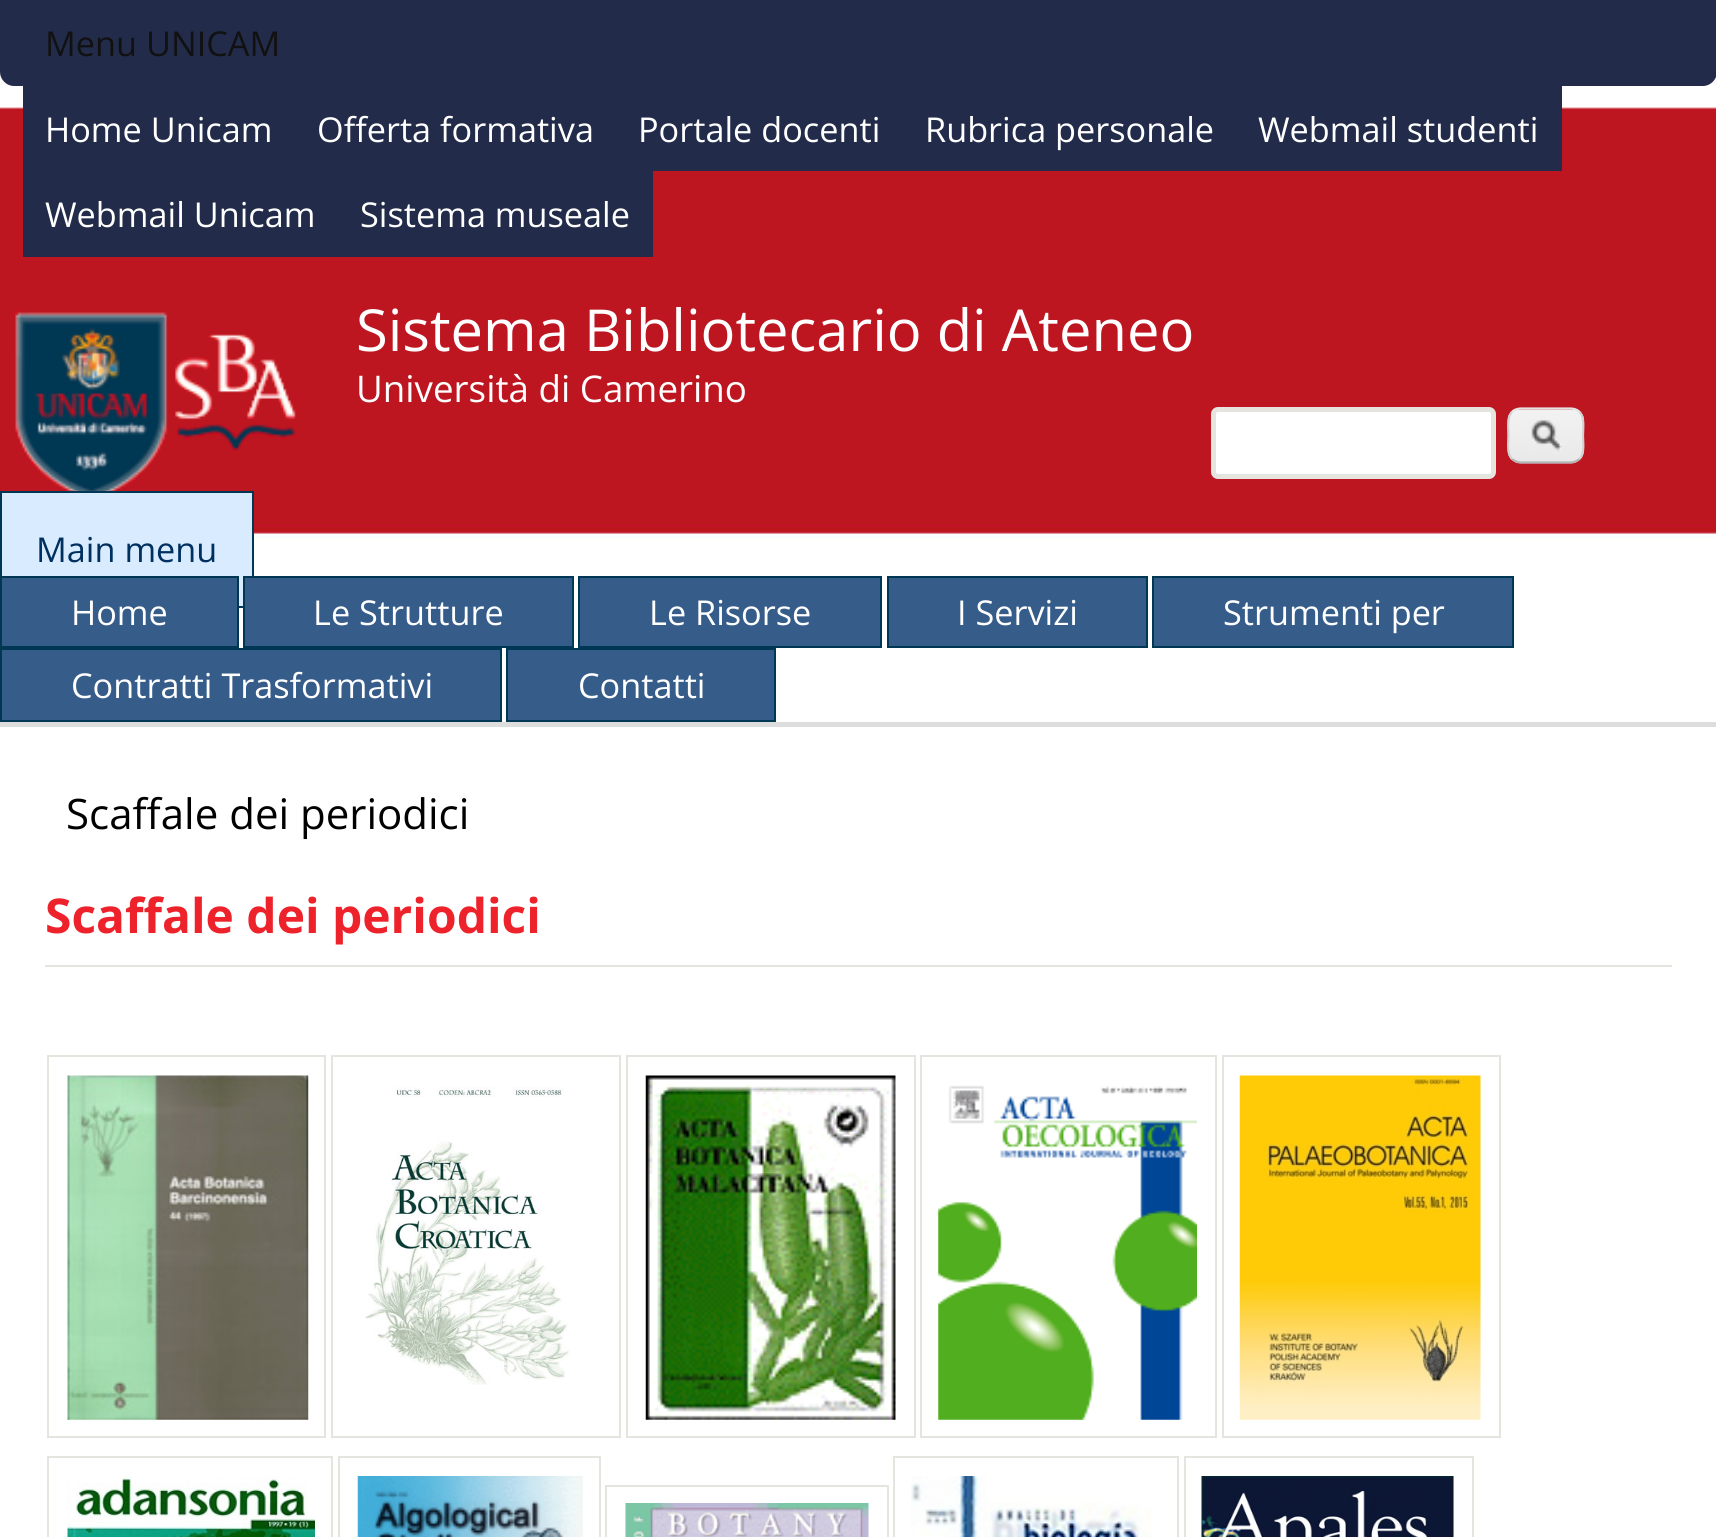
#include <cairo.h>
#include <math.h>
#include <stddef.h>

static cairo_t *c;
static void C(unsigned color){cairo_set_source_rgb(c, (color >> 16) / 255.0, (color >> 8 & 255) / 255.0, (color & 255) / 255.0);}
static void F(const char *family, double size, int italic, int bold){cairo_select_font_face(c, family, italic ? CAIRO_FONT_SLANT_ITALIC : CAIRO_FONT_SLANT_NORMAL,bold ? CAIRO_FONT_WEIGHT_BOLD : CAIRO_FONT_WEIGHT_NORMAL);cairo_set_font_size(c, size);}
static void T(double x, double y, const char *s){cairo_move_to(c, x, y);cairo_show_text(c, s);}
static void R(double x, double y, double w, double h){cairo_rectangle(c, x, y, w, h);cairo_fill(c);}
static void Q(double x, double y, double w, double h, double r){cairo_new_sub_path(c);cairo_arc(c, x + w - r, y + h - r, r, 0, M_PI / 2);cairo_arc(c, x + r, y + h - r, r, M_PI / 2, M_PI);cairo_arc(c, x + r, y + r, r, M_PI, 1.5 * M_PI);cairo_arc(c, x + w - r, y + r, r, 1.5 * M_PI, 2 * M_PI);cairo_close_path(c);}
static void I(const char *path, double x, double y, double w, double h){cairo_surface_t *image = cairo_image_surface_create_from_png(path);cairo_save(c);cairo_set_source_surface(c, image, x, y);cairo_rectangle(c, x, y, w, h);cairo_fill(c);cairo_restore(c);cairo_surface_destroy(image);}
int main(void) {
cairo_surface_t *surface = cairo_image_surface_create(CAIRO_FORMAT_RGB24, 1716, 1537);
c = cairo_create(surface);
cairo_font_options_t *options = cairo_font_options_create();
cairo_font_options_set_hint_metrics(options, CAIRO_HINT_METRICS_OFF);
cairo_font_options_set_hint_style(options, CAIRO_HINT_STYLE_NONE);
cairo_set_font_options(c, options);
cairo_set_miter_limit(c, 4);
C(0xffffff);
cairo_paint(c);
I("1.png",0,107,1716,433);
C(0x222c4a);
cairo_new_path(c);
cairo_move_to(c,0,0);
cairo_line_to(c,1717,0);
cairo_line_to(c,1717,72);
cairo_curve_to(c,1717,79.5,1710.5,86,1703,86);
cairo_line_to(c,14,86);
cairo_curve_to(c,6.5,86,0,79.5,0,72);
cairo_close_path(c);
cairo_fill(c);
F("Open Sans",34.25,0,0);
C(0x111111);
T(45,56,"Menu UNICAM");
C(0x222c4a);
R(23,86,1539,85);
C(0xffffff);
T(45,142,"Home Unicam");
T(317,142,"Offerta formativa");
T(638,142,"Portale docenti");
T(925,142,"Rubrica personale");
T(1258,142,"Webmail studenti");
C(0x222c4a);
R(23,171,630,86);
C(0xffffff);
T(45,227,"Webmail Unicam");
T(360,227,"Sistema museale");
I("2.png",13,310,283,181);
F("Open Sans",57.9,0,0);
T(356,351,"Sistema Bibliotecario di Ateneo");
F("Open Sans",36.75,0,0);
T(356,402,"Università di Camerino");
Q(1213.5,409.5,280,67,4.5);
cairo_fill_preserve(c);
C(0xe6e4de);
cairo_set_line_width(c,5);
cairo_stroke(c);
I("3.png",1507,409,77,55);
cairo_new_path(c);
cairo_move_to(c,1512,412);
cairo_curve_to(c,1514.5,409.5,1517.5,408.5,1521,408.5);
cairo_line_to(c,1570.5,408.5);
cairo_curve_to(c,1574,408.5,1577,409.5,1579.5,412);
C(0xe4e4e4);
cairo_set_line_width(c,2.2);
cairo_stroke(c);
cairo_new_path(c);
cairo_move_to(c,1579.5,412);
cairo_curve_to(c,1585,417.5,1583,428.5,1583,435.5);
cairo_curve_to(c,1583,442.5,1585,453,1579.5,459);
C(0xd2d2d2);
cairo_stroke(c);
cairo_new_path(c);
cairo_move_to(c,1579.5,459);
cairo_curve_to(c,1577,461,1574,462.5,1570.5,462.5);
cairo_line_to(c,1521,462.5);
cairo_curve_to(c,1517.5,462.5,1514.5,461,1512,459);
C(0xb4b4b4);
cairo_stroke(c);
cairo_new_path(c);
cairo_move_to(c,1512,459);
cairo_curve_to(c,1506.5,453,1508.5,442.5,1508.5,435.5);
cairo_curve_to(c,1508.5,428.5,1506.5,417.5,1512,412);
C(0xd2d2d2);
cairo_stroke(c);
C(0xd9ecff);
cairo_rectangle(c,1,492,252,115);
cairo_fill_preserve(c);
C(0x003755);
cairo_set_line_width(c,2);
cairo_stroke(c);
F("Open Sans",34.25,0,0);
C(0x00305f);
T(36,562,"Main menu");
C(0x365c8a);
cairo_rectangle(c,1,577,237,70);
cairo_fill_preserve(c);
C(0x003755);
cairo_stroke(c);
C(0xffffff);
T(71,625,"Home");
C(0x365c8a);
cairo_rectangle(c,244,577,329,70);
cairo_fill_preserve(c);
C(0x003755);
cairo_stroke(c);
C(0xffffff);
T(313,625,"Le Strutture");
C(0x365c8a);
cairo_rectangle(c,579,577,302,70);
cairo_fill_preserve(c);
C(0x003755);
cairo_stroke(c);
C(0xffffff);
T(649,625,"Le Risorse");
C(0x365c8a);
cairo_rectangle(c,888,577,259,70);
cairo_fill_preserve(c);
C(0x003755);
cairo_stroke(c);
C(0xffffff);
T(957,625,"I Servizi");
C(0x365c8a);
cairo_rectangle(c,1153,577,360,70);
cairo_fill_preserve(c);
C(0x003755);
cairo_stroke(c);
C(0xffffff);
T(1223,625,"Strumenti per");
C(0x365c8a);
cairo_rectangle(c,1,649,500,72);
cairo_fill_preserve(c);
C(0x003755);
cairo_stroke(c);
C(0xffffff);
T(71,698,"Contratti Trasformativi");
C(0x365c8a);
cairo_rectangle(c,507,649,268,72);
cairo_fill_preserve(c);
C(0x003755);
cairo_stroke(c);
C(0xffffff);
T(578,698,"Contatti");
C(0xdddddd);
R(0,722,1716,5);
F("Open Sans",42,0,0);
C(0x000000);
T(66,829,"Scaffale dei periodici");
F("Open Sans",47.9,0,1);
C(0xed222a);
T(45,933,"Scaffale dei periodici");
C(0xe6e4de);
R(45,965,1627,2);
cairo_rectangle(c,48,1056,277,381);
cairo_stroke(c);
cairo_rectangle(c,332,1056,288,381);
cairo_stroke(c);
cairo_rectangle(c,627,1056,288,381);
cairo_stroke(c);
cairo_rectangle(c,921,1056,295,381);
cairo_stroke(c);
cairo_rectangle(c,1223,1056,277,381);
cairo_stroke(c);
I("4.png",67,1075,242,345);
I("5.png",365,1086,205,299);
I("6.png",645,1075,251,345);
I("7.png",938,1085,259,335);
I("8.png",1239,1075,242,345);
cairo_rectangle(c,48,1457,284,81);
cairo_stroke(c);
cairo_rectangle(c,339,1457,261,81);
cairo_stroke(c);
cairo_rectangle(c,894,1457,284,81);
cairo_stroke(c);
cairo_rectangle(c,1185,1457,288,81);
cairo_stroke(c);
I("9.png",67,1476,248,61);
I("10.png",357,1476,226,61);
cairo_rectangle(c,606,1486,282,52);
cairo_stroke(c);
I("11.png",911,1476,241,61);
I("12.png",1201,1476,253,61);
I("13.png",625,1503,244,34);
cairo_surface_write_to_png(surface, "o.png");
cairo_font_options_destroy(options);
cairo_destroy(c);
cairo_surface_destroy(surface);
return 0;
}
